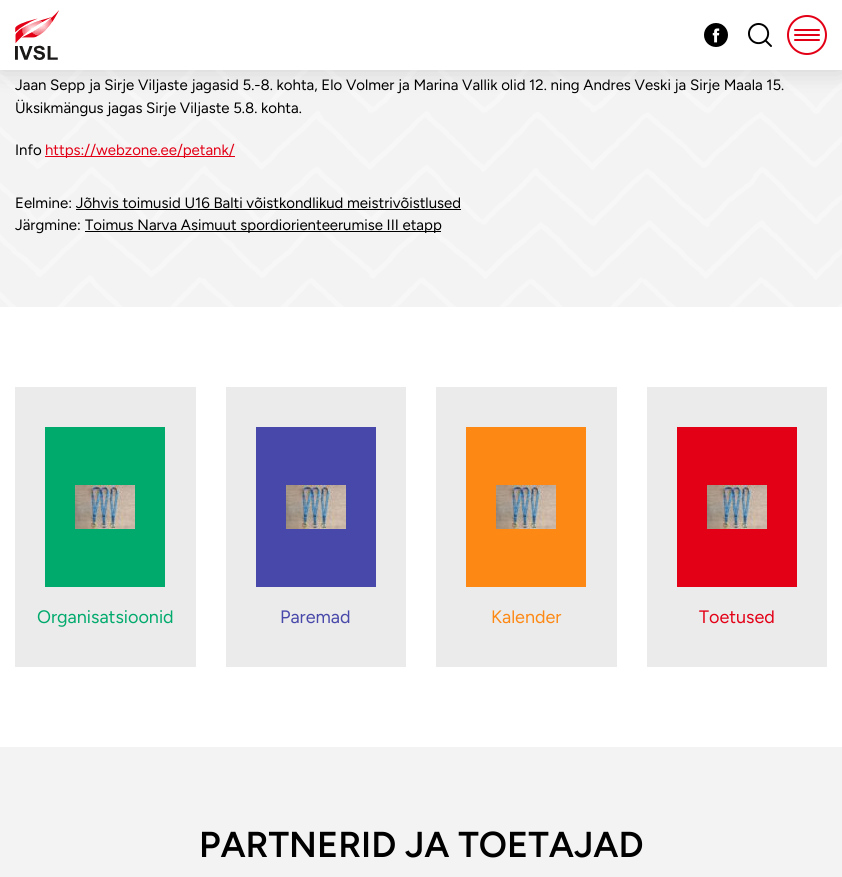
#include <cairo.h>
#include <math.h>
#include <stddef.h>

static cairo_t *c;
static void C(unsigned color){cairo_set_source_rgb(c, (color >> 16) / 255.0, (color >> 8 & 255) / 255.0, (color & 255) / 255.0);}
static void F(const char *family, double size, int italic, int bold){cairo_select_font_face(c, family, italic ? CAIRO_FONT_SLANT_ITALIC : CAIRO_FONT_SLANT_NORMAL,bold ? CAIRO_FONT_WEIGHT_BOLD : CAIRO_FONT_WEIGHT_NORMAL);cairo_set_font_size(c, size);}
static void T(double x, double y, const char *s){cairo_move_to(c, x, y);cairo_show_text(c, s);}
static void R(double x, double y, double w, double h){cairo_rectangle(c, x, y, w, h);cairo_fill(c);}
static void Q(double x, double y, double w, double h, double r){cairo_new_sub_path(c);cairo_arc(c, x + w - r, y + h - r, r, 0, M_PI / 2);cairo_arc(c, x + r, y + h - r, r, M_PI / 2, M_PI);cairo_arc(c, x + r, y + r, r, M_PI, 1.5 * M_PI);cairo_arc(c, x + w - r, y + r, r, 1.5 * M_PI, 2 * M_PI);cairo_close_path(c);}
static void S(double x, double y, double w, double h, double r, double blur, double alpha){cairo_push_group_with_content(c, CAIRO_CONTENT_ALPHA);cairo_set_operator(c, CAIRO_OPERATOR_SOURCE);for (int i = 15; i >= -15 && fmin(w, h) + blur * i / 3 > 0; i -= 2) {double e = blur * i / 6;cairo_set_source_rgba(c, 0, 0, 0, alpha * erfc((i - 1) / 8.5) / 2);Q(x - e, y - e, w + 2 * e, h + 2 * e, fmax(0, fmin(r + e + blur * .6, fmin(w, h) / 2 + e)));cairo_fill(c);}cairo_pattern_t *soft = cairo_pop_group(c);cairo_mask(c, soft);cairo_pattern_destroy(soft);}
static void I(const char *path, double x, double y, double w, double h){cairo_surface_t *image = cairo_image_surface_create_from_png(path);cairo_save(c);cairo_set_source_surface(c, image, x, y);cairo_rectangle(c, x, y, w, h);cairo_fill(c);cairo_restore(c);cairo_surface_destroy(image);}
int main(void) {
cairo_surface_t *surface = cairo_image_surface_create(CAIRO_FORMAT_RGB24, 842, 877);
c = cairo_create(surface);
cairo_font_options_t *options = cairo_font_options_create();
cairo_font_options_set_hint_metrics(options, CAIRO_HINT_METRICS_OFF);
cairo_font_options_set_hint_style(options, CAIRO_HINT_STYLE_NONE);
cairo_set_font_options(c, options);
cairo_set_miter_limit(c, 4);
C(0xf3f3f3);
cairo_paint(c);
I("4.png",0,70,842,237);
C(0x000000);
S(0,0,842,70,0,12.5,.15);
C(0xffffff);
R(0,0,842,70);
I("1.png",15,10,44,50);
I("2.png",704,23,24,24);
I("3.png",748,23,24,24);
cairo_arc(c,807,35,19,0,2 * M_PI);
C(0xe30016);
cairo_stroke(c);
Q(794,29,26,2,1);
cairo_fill(c);
Q(794,34,26,2,1);
cairo_fill(c);
Q(794,39,26,2,1);
cairo_fill(c);
F("Figtree",15,0,0);
C(0x000000);
T(15,90,"Jaan Sepp ja Sirje Viljaste jagasid 5.-8. kohta, Elo Volmer ja Marina Vallik olid 12. ning Andres Veski ja Sirje Maala 15.");
T(15,113,"Üksikmängus jagas Sirje Viljaste 5.8. kohta.");
T(15,155,"Info");
C(0xe30016);
R(45,156,190,1);
T(45,155,"https://webzone.ee/petank/");
C(0x000000);
T(15,208,"Eelmine: Jõhvis toimusid U16 Balti võistkondlikud meistrivõistlused");
R(76,209,385,1);
T(15,230,"Järgmine:");
R(85,231,356,1);
T(85,230,"Toimus Narva Asimuut spordiorienteerumise III etapp");
C(0xffffff);
R(0,307,842,440);
C(0xebebeb);
R(15,387,181,280);
C(0x00aa6c);
R(45,427,120,160);
I("5.png",75,485,60,44);
F("Figtree",18,0,0);
T(37,623,"Organisatsioonid");
C(0xebebeb);
R(226,387,180,280);
C(0x4848aa);
R(256,427,120,160);
I("5.png",286,485,60,44);
T(280,623,"Paremad");
C(0xebebeb);
R(436,387,181,280);
C(0xfd8813);
R(466,427,120,160);
I("5.png",496,485,60,44);
T(491,623,"Kalender");
C(0xebebeb);
R(647,387,180,280);
C(0xe30016);
R(677,427,120,160);
I("5.png",707,485,60,44);
T(699,623,"Toetused");
F("Figtree SemiBold",36,0,0);
C(0x000000);
T(199,857,"PARTNERID JA TOETAJAD");
cairo_surface_write_to_png(surface, "o.png");
cairo_font_options_destroy(options);
cairo_destroy(c);
cairo_surface_destroy(surface);
return 0;
}
